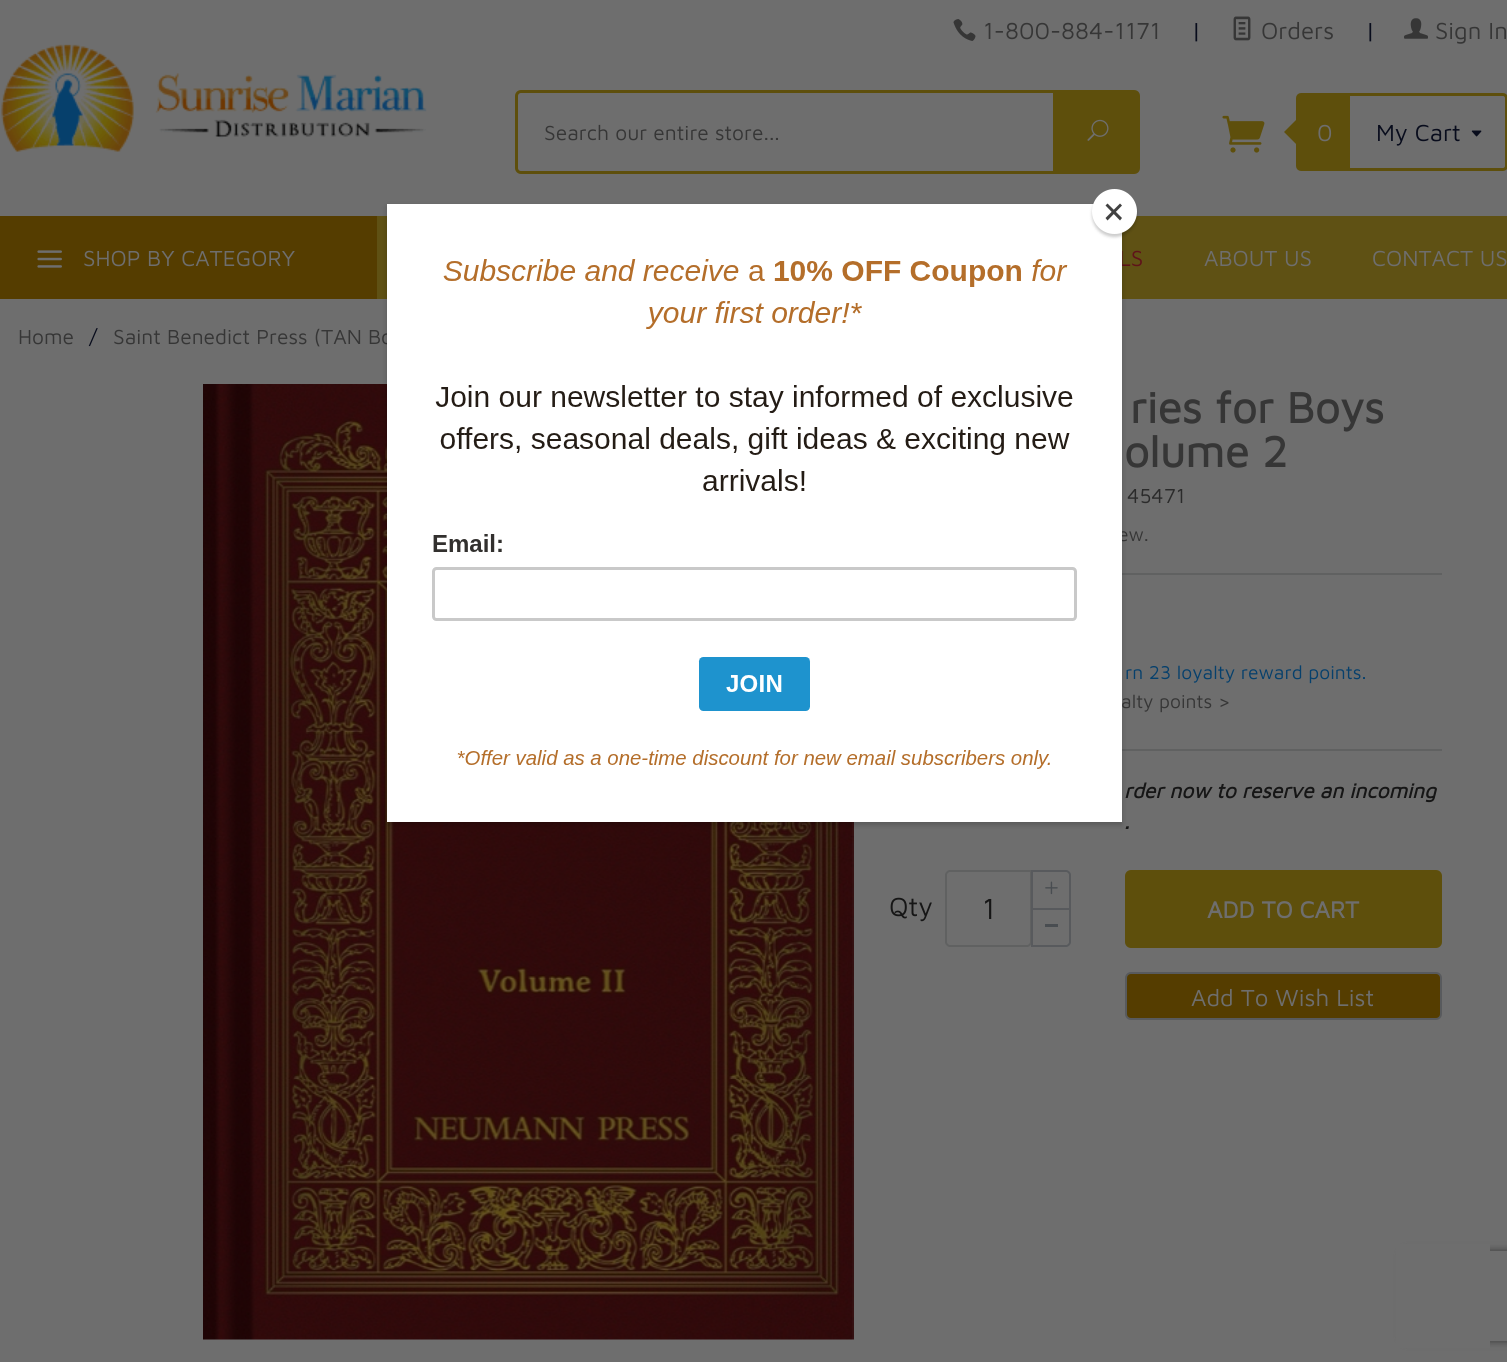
#include <cairo.h>
#include <math.h>
#include <stddef.h>

static cairo_t *c;
static void C(unsigned color){cairo_set_source_rgb(c, (color >> 16) / 255.0, (color >> 8 & 255) / 255.0, (color & 255) / 255.0);}
static void F(const char *family, double size, int italic, int bold){cairo_select_font_face(c, family, italic ? CAIRO_FONT_SLANT_ITALIC : CAIRO_FONT_SLANT_NORMAL,bold ? CAIRO_FONT_WEIGHT_BOLD : CAIRO_FONT_WEIGHT_NORMAL);cairo_set_font_size(c, size);}
static void T(double x, double y, const char *s){cairo_move_to(c, x, y);cairo_show_text(c, s);}
static void R(double x, double y, double w, double h){cairo_rectangle(c, x, y, w, h);cairo_fill(c);}
static void Q(double x, double y, double w, double h, double r){cairo_new_sub_path(c);cairo_arc(c, x + w - r, y + h - r, r, 0, M_PI / 2);cairo_arc(c, x + r, y + h - r, r, M_PI / 2, M_PI);cairo_arc(c, x + r, y + r, r, M_PI, 1.5 * M_PI);cairo_arc(c, x + w - r, y + r, r, 1.5 * M_PI, 2 * M_PI);cairo_close_path(c);}
static void S(double x, double y, double w, double h, double r, double blur, double alpha){cairo_push_group_with_content(c, CAIRO_CONTENT_ALPHA);cairo_set_operator(c, CAIRO_OPERATOR_SOURCE);for (int i = 15; i >= -15 && fmin(w, h) + blur * i / 3 > 0; i -= 2) {double e = blur * i / 6;cairo_set_source_rgba(c, 0, 0, 0, alpha * erfc((i - 1) / 8.5) / 2);Q(x - e, y - e, w + 2 * e, h + 2 * e, fmax(0, fmin(r + e + blur * .6, fmin(w, h) / 2 + e)));cairo_fill(c);}cairo_pattern_t *soft = cairo_pop_group(c);cairo_mask(c, soft);cairo_pattern_destroy(soft);}
static void I(const char *path, double x, double y, double w, double h){cairo_surface_t *image = cairo_image_surface_create_from_png(path);cairo_save(c);cairo_set_source_surface(c, image, x, y);cairo_rectangle(c, x, y, w, h);cairo_fill(c);cairo_restore(c);cairo_surface_destroy(image);}
int main(void) {
cairo_surface_t *surface = cairo_image_surface_create(CAIRO_FORMAT_RGB24, 1507, 1362);
c = cairo_create(surface);
cairo_font_options_t *options = cairo_font_options_create();
cairo_font_options_set_hint_metrics(options, CAIRO_HINT_METRICS_OFF);
cairo_font_options_set_hint_style(options, CAIRO_HINT_STYLE_NONE);
cairo_set_font_options(c, options);
cairo_set_miter_limit(c, 4);
C(0x6e6e6e);
cairo_paint(c);
I("1.png",953,19,23,22);
F("Maven Pro",24,0,0);
C(0x363636);
T(983,39,"1-800-884-1171");
C(0x080c1c);
T(1191,39,"|");
I("2.png",1233,16,18,25);
C(0x363636);
T(1261,39,"Orders");
C(0x080c1c);
T(1365,39,"|");
I("3.png",1404,18,24,21);
C(0x363636);
T(1435,39,"Sign In");
I("4.png",1,44,426,108);
cairo_new_path(c);
cairo_move_to(c,521,91.5);
cairo_line_to(c,1054.5,91.5);
cairo_line_to(c,1054.5,172.5);
cairo_line_to(c,521,172.5);
cairo_curve_to(c,518.5,172.5,516.5,170.5,516.5,168);
cairo_line_to(c,516.5,96);
cairo_curve_to(c,516.5,93.5,518.5,91.5,521,91.5);
cairo_close_path(c);
C(0x5e4f0c);
cairo_set_line_width(c,3);
cairo_stroke(c);
F("Maven Pro",21,0,0);
C(0x363636);
T(544,140,"Search our entire store...");
C(0x5e4f0c);
cairo_new_path(c);
cairo_move_to(c,1056,90);
cairo_line_to(c,1134,90);
cairo_curve_to(c,1137.5,90,1140,92.5,1140,96);
cairo_line_to(c,1140,168);
cairo_curve_to(c,1140,171.5,1137.5,174,1134,174);
cairo_line_to(c,1056,174);
cairo_close_path(c);
cairo_fill(c);
I("5.png",1087,119,22,22);
I("6.png",1222,115,43,38);
Q(1297.5,94.5,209,75,3.5);
cairo_stroke(c);
cairo_new_path(c);
cairo_move_to(c,1299,117);
cairo_line_to(c,1299,147);
cairo_line_to(c,1284,132);
cairo_close_path(c);
cairo_fill(c);
R(1299,96,51,72);
F("Maven Pro",24,0,0);
C(0x6e6e6e);
T(1317,141,"0");
C(0x080c1c);
T(1376,141,"My Cart");
I("7.png",1471,130,11,7);
C(0x5f5114);
R(377,216,1130,83);
C(0x553d00);
R(0,216,377,83);
I("8.png",37,250,25,18);
F("Maven Pro",22.5,0,0);
C(0x6e6e6e);
T(83,266,"SHOP BY CATEGORY");
C(0x5f1219);
T(1119,266,"LS");
C(0x6e6e6e);
T(1204,266,"ABOUT US");
T(1372,266,"CONTACT US");
F("Maven Pro",21,0,0);
C(0x363636);
T(18,344,"Home");
C(0x080c1c);
T(89,344,"/");
C(0x363636);
T(113,344,"Saint Benedict Press (TAN Bo");
cairo_save(c);
cairo_set_fill_rule(c,CAIRO_FILL_RULE_EVEN_ODD);
cairo_new_path(c);
cairo_move_to(c,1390,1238);
cairo_line_to(c,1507,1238);
cairo_line_to(c,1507,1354);
cairo_line_to(c,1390,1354);
cairo_close_path(c);
cairo_move_to(c,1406,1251);
cairo_line_to(c,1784,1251);
cairo_curve_to(c,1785.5,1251,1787,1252.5,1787,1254);
cairo_line_to(c,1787,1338);
cairo_curve_to(c,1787,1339.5,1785.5,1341,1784,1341);
cairo_line_to(c,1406,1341);
cairo_curve_to(c,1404.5,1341,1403,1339.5,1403,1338);
cairo_line_to(c,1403,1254);
cairo_curve_to(c,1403,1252.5,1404.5,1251,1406,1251);
cairo_close_path(c);
cairo_clip(c);
C(0x373737);
S(1403,1251,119,90,3,4,1);
cairo_restore(c);
C(0x6e6e6e);
R(1396,1244,94,104);
I("9.png",203,384,651,956);
F("Maven Pro",44.5,0,1);
C(0x363636);
T(1130,423,"ries for Boys");
T(1124,467,"olume 2");
F("Maven Pro",21,0,0);
C(0x2b2b2b);
T(1127,503,"45471");
F("Maven Pro",19.25,0,0);
C(0x363636);
T(1118,541,"ew.");
C(0x606161);
R(1122,573,320,2);
C(0x06406c);
T(1125,679,"rn 23 loyalty reward points.");
C(0x363636);
T(1121,708,"alty points >");
C(0x606161);
R(1122,749,320,2);
F("Maven Pro",21,1,1);
C(0x161616);
T(1124,798,"rder now to reserve an incoming");
T(1124,829,".");
F("Maven Pro",27,0,0);
T(889,916,"Qty");
cairo_new_path(c);
cairo_move_to(c,950,871);
cairo_line_to(c,1031,871);
cairo_line_to(c,1031,942);
cairo_curve_to(c,1031,944,1029,946,1027,946);
cairo_line_to(c,950,946);
cairo_curve_to(c,948,946,946,944,946,942);
cairo_line_to(c,946,875);
cairo_curve_to(c,946,873,948,871,950,871);
cairo_close_path(c);
C(0x606161);
cairo_set_line_width(c,2);
cairo_stroke(c);
F("Maven Pro",30,0,0);
C(0x161616);
T(982,919,"1");
cairo_new_path(c);
cairo_move_to(c,1032,871);
cairo_line_to(c,1066,871);
cairo_curve_to(c,1068,871,1070,873,1070,875);
cairo_line_to(c,1070,942);
cairo_curve_to(c,1070,944,1068,946,1066,946);
cairo_line_to(c,1032,946);
cairo_close_path(c);
C(0x585a5d);
cairo_stroke(c);
R(1032,908,38,2);
I("10.png",1045,881,13,14);
C(0x494d51);
R(1045,924,13,3);
C(0x5e4f0c);
Q(1125,870,317,78,6);
cairo_fill(c);
F("Maven Pro",24,0,1);
C(0x6e6e6e);
T(1207,918,"ADD TO CART");
C(0x553d00);
Q(1126,973,315,46,5);
cairo_fill_preserve(c);
C(0x585a5d);
cairo_stroke(c);
F("Maven Pro",24,0,0);
C(0x6e6e6e);
T(1191,1006,"Add To Wish List");
C(0x000000);
S(387,207,735,618,0,3,.2);
I("11.png",387,204,735,618);
S(1092,192,45,45,22.5,1.5,.2);
C(0xffffff);
cairo_arc(c,1114.5,211.5,22.5,0,2 * M_PI);
cairo_fill(c);
C(0x414141);
cairo_new_path(c);
cairo_move_to(c,1120,203.5);
cairo_line_to(c,1122,205.5);
cairo_line_to(c,1107.5,220.5);
cairo_line_to(c,1105.5,218);
cairo_close_path(c);
cairo_fill(c);
cairo_new_path(c);
cairo_move_to(c,1105.5,205.5);
cairo_line_to(c,1107.5,203.5);
cairo_line_to(c,1122,218);
cairo_line_to(c,1120,220.5);
cairo_close_path(c);
cairo_fill(c);
cairo_surface_write_to_png(surface, "o.png");
cairo_font_options_destroy(options);
cairo_destroy(c);
cairo_surface_destroy(surface);
return 0;
}
